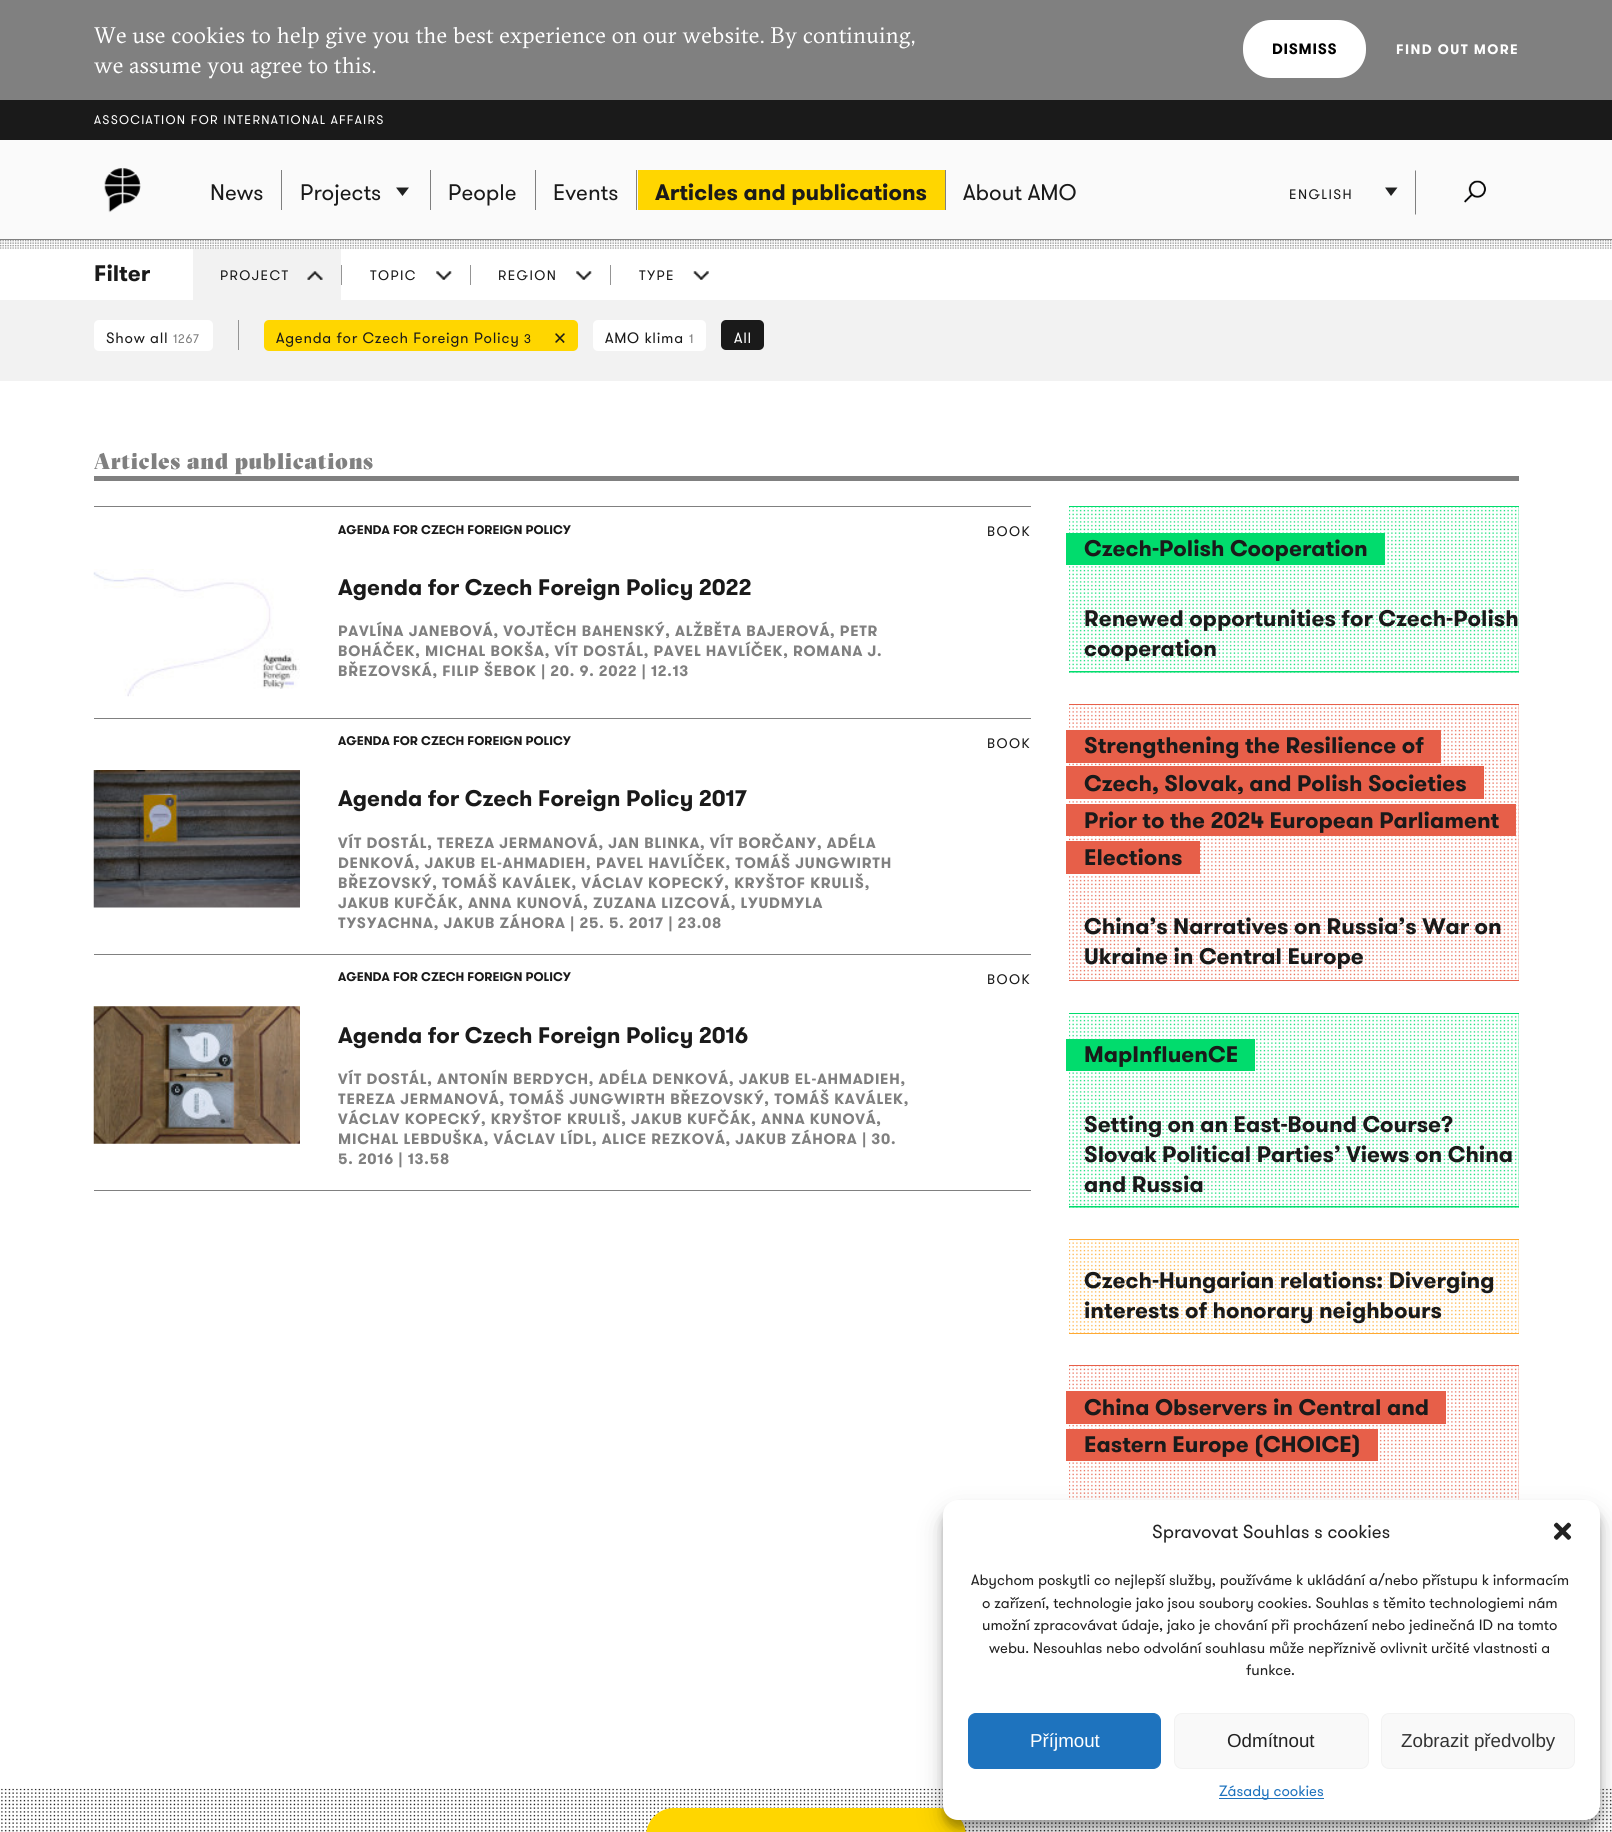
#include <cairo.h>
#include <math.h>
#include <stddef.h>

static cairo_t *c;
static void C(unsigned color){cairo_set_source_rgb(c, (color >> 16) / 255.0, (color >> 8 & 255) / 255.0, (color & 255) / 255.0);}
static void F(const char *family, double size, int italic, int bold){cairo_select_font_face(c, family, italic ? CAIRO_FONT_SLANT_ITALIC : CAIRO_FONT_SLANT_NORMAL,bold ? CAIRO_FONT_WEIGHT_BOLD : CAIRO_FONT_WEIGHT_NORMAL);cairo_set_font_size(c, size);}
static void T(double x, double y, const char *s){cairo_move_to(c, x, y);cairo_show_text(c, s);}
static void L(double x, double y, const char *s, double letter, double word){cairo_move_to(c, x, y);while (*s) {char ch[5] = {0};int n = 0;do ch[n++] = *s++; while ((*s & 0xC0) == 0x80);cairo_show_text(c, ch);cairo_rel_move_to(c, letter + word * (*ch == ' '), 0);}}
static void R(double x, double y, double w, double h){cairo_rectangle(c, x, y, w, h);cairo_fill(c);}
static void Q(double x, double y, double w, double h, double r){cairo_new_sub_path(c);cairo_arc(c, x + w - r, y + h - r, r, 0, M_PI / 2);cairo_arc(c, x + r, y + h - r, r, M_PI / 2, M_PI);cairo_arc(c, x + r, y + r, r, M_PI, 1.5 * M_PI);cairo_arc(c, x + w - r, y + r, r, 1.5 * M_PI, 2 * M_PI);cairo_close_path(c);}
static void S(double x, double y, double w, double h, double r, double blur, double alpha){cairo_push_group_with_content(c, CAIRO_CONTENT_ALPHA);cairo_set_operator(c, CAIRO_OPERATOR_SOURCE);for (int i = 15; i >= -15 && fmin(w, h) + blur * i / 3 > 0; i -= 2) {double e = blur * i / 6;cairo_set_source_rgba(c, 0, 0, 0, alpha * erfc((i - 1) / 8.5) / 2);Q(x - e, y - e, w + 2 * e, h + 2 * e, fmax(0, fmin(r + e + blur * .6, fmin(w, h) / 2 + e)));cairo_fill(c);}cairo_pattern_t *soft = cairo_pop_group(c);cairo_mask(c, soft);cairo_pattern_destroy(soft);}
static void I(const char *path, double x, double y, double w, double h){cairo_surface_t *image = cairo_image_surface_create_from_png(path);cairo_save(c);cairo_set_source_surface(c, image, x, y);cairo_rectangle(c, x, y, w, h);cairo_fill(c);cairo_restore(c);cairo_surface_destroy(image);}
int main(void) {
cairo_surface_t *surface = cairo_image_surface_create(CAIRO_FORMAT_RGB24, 1612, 1832);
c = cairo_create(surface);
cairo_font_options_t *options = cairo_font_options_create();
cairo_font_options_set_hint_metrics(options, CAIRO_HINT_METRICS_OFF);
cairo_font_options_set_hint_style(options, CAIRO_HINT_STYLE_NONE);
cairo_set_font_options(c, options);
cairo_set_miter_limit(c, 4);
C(0xffffff);
cairo_paint(c);
C(0x808080);
R(0,0,1612,100);
F("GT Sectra",22.5,0,0);
C(0xffffff);
L(94,43,"We use cookies to help give you the best experience on our website. By continuing,",.22,0);
L(94,73,"we assume you agree to this.",.22,0);
Q(1243,20,123,58,28);
cairo_fill(c);
F("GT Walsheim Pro",15,0,1);
C(0x000000);
L(1272,54,"DISMISS",.75,0);
F("GT Walsheim Pro",13.75,0,1);
C(0xffffff);
L(1396,54,"FIND OUT MORE",1.4,0);
C(0x1a1a1a);
R(0,100,1612,40);
F("GT Walsheim Pro",12.5,0,0);
C(0xffffff);
L(94,124,"ASSOCIATION FOR INTERNATIONAL AFFAIRS",1.25,0);
C(0xfafafa);
R(0,140,1612,99);
C(0x808080);
R(0,239,1612,1);
I("1.png",104,168,37,45);
F("GT Walsheim Pro",22.5,0,0);
C(0x1a1a1a);
T(210,200,"News");
C(0x808080);
R(281,170,1,40);
C(0x1a1a1a);
T(300,200,"Projects");
C(0x202121);
cairo_new_path(c);
cairo_move_to(c,396,187.5);
cairo_line_to(c,409,187.5);
cairo_line_to(c,402.5,196);
cairo_close_path(c);
cairo_fill(c);
C(0x808080);
R(430,170,1,40);
C(0x1a1a1a);
T(448,200,"People");
C(0x808080);
R(535,170,1,40);
C(0x1a1a1a);
T(553,200,"Events");
C(0x808080);
R(636,170,1,40);
C(0xffd600);
R(638,170,307,40);
F("GT Walsheim Pro",22.5,0,1);
C(0x1a1a1a);
T(655,200,"Articles and publications");
C(0x808080);
R(945,170,1,40);
F("GT Walsheim Pro",22.5,0,0);
C(0x1a1a1a);
T(963,200,"About AMO");
C(0x808080);
cairo_new_path(c);
cairo_move_to(c,1416,170);
cairo_line_to(c,1416,215);
cairo_line_to(c,1415,214);
cairo_line_to(c,1415,171);
cairo_close_path(c);
cairo_fill(c);
F("GT Walsheim Pro",13.75,0,0);
C(0x1a1a1a);
L(1289,199,"ENGLISH",1.4,0);
C(0x202121);
cairo_new_path(c);
cairo_move_to(c,1385,187.5);
cairo_line_to(c,1397.5,187.5);
cairo_line_to(c,1391,196);
cairo_close_path(c);
cairo_fill(c);
I("2.png",1464,180,22,23);
I("3.png",0,240,1612,9);
F("GT Walsheim Pro",22.5,0,1);
C(0x1a1a1a);
T(94,281,"Filter");
C(0xf2f2f2);
R(193,249,148,51);
F("GT Walsheim Pro",13.75,0,0);
C(0x1a1a1a);
L(220,280,"PROJECT",1.4,0);
I("4.png",307,271,16,9);
C(0x959595);
R(341,265,1,20);
C(0x1a1a1a);
L(370,280,"TOPIC",1.4,0);
I("5.png",436,271,16,9);
C(0x959595);
R(470,265,1,20);
C(0x1a1a1a);
L(498,280,"REGION",1.4,0);
I("5.png",576,271,16,9);
C(0x959595);
R(610,265,1,20);
C(0x1a1a1a);
L(639,280,"TYPE",1.4,0);
I("6.png",693,271,16,9);
C(0xf2f2f2);
R(0,300,1612,81);
C(0xffffff);
Q(94,320,119,31,5);
cairo_fill(c);
F("GT Walsheim Pro",15,0,0);
C(0x1a1a1a);
L(106,343,"Show all",.75,0);
F("GT Walsheim Pro",12.5,0,0);
C(0x808080);
L(173,343,"1267",.75,0);
C(0x959595);
R(238,320,1,30);
C(0xffd600);
Q(264,320,314,31,5);
cairo_fill(c);
F("GT Walsheim Pro",15,0,0);
C(0x1a1a1a);
L(276,343,"Agenda for Czech Foreign Policy",.75,0);
F("GT Walsheim Pro",12.5,0,0);
L(524,343,"3",.75,0);
I("7.png",555,333,10,10);
C(0xffffff);
Q(593,320,113,31,5);
cairo_fill(c);
F("GT Walsheim Pro",15,0,0);
C(0x1a1a1a);
L(605,343,"AMO klima",.75,0);
F("GT Walsheim Pro",12.5,0,0);
C(0x808080);
L(689,343,"1",.75,0);
C(0x1a1a1a);
Q(721,320,43,30,5);
cairo_fill(c);
F("GT Walsheim Pro",15,0,0);
C(0xffffff);
L(734,343,"All",.75,0);
C(0x808080);
R(94,476,1425,5);
F("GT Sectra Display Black",22.5,0,0);
L(94,469,"Articles and publications",.55,0);
R(94,506,937,1);
R(94,718,937,1);
F("GT Walsheim Pro",12.5,0,1);
C(0x1a1a1a);
T(338,534,"AGENDA FOR CZECH FOREIGN POLICY");
F("GT Walsheim Pro",13.75,0,0);
L(987,536,"BOOK",1.4,0);
I("8.png",93,569,207,128);
F("GT Walsheim Pro",22.5,0,1);
T(338,595,"Agenda for Czech Foreign Policy 2022");
F("GT Walsheim Pro",15,0,1);
C(0x808080);
L(338,636,"PAVLÍNA JANEBOVÁ, VOJTĚCH BAHENSKÝ, ALŽBĚTA BAJEROVÁ, PETR",.75,0);
L(338,656,"BOHÁČEK, MICHAL BOKŠA, VÍT DOSTÁL, PAVEL HAVLÍČEK, ROMANA J.",.75,0);
L(338,676,"BŘEZOVSKÁ, FILIP ŠEBOK | 20. 9. 2022 | 12.13",.75,0);
R(94,954,937,1);
F("GT Walsheim Pro",12.5,0,1);
C(0x1a1a1a);
T(338,745,"AGENDA FOR CZECH FOREIGN POLICY");
F("GT Walsheim Pro",13.75,0,0);
L(987,748,"BOOK",1.4,0);
I("9.png",93,770,207,138);
F("GT Walsheim Pro",22.5,0,1);
T(338,806,"Agenda for Czech Foreign Policy 2017");
F("GT Walsheim Pro",15,0,1);
C(0x808080);
L(338,848,"VÍT DOSTÁL, TEREZA JERMANOVÁ, JAN BLINKA, VÍT BORČANY, ADÉLA",.75,0);
L(338,868,"DENKOVÁ, JAKUB EL-AHMADIEH, PAVEL HAVLÍČEK, TOMÁŠ JUNGWIRTH",.75,0);
L(338,888,"BŘEZOVSKÝ, TOMÁŠ KAVÁLEK, VÁCLAV KOPECKÝ, KRYŠTOF KRULIŠ,",.75,0);
L(338,908,"JAKUB KUFČÁK, ANNA KUNOVÁ, ZUZANA LIZCOVÁ, LYUDMYLA",.75,0);
L(338,928,"TYSYACHNA, JAKUB ZÁHORA | 25. 5. 2017 | 23.08",.75,0);
R(94,1190,937,1);
F("GT Walsheim Pro",12.5,0,1);
C(0x1a1a1a);
T(338,981,"AGENDA FOR CZECH FOREIGN POLICY");
F("GT Walsheim Pro",13.75,0,0);
L(987,984,"BOOK",1.4,0);
I("10.png",93,1006,207,138);
F("GT Walsheim Pro",22.5,0,1);
T(338,1043,"Agenda for Czech Foreign Policy 2016");
F("GT Walsheim Pro",15,0,1);
C(0x808080);
L(338,1084,"VÍT DOSTÁL, ANTONÍN BERDYCH, ADÉLA DENKOVÁ, JAKUB EL-AHMADIEH,",.75,0);
L(338,1104,"TEREZA JERMANOVÁ, TOMÁŠ JUNGWIRTH BŘEZOVSKÝ, TOMÁŠ KAVÁLEK,",.75,0);
L(338,1124,"VÁCLAV KOPECKÝ, KRYŠTOF KRULIŠ, JAKUB KUFČÁK, ANNA KUNOVÁ,",.75,0);
L(338,1144,"MICHAL LEBDUŠKA, VÁCLAV LÍDL, ALICE REZKOVÁ, JAKUB ZÁHORA | 30.",.75,0);
L(338,1164,"5. 2016 | 13.58",.75,0);
C(0x01dc6d);
R(1069,506,450,167);
I("11.png",1069,507,450,166);
R(1069,671,450,1);
R(1084,533,301,32);
F("GT Walsheim Pro",22.5,0,1);
C(0x1a1a1a);
T(1084,556,"Czech-Polish Cooperation");
C(0x01dc6d);
R(1066,533,18,32);
C(0x1a1a1a);
T(1084,626,"Renewed opportunities for Czech-Polish");
T(1084,656,"cooperation");
C(0xe75f49);
R(1069,704,450,277);
I("12.png",1069,705,450,275);
cairo_new_path(c);
cairo_move_to(c,1066,730);
cairo_line_to(c,1066,763);
cairo_line_to(c,1406,763);
cairo_line_to(c,1406,762);
cairo_line_to(c,1084,762);
cairo_line_to(c,1084,730);
cairo_close_path(c);
cairo_fill(c);
cairo_new_path(c);
cairo_move_to(c,1101,762);
cairo_line_to(c,1101,763);
cairo_line_to(c,1441,763);
cairo_line_to(c,1441,730);
cairo_line_to(c,1424,730);
cairo_line_to(c,1424,762);
cairo_close_path(c);
cairo_fill(c);
R(1084,730,340,32);
C(0x1a1a1a);
T(1084,753,"Strengthening the Resilience of");
C(0xe75f49);
R(1084,766,382,33);
C(0x1a1a1a);
T(1084,791,"Czech, Slovak, and Polish Societies");
C(0xe75f49);
cairo_new_path(c);
cairo_move_to(c,1066,766);
cairo_line_to(c,1066,799);
cairo_line_to(c,1449,799);
cairo_line_to(c,1084,799);
cairo_line_to(c,1084,766);
cairo_line_to(c,1449,766);
cairo_close_path(c);
cairo_fill(c);
cairo_new_path(c);
cairo_move_to(c,1101,766);
cairo_line_to(c,1466,766);
cairo_line_to(c,1466,799);
cairo_line_to(c,1101,799);
cairo_line_to(c,1484,799);
cairo_line_to(c,1484,766);
cairo_close_path(c);
cairo_fill(c);
R(1084,804,432,32);
C(0x1a1a1a);
T(1084,828,"Prior to the 2024 European Parliament");
C(0xe75f49);
R(1066,804,18,32);
R(1084,841,98,33);
C(0x1a1a1a);
T(1084,865,"Elections");
C(0xe75f49);
cairo_new_path(c);
cairo_move_to(c,1066,841);
cairo_line_to(c,1066,874);
cairo_line_to(c,1165,874);
cairo_line_to(c,1084,874);
cairo_line_to(c,1084,841);
cairo_line_to(c,1165,841);
cairo_close_path(c);
cairo_fill(c);
cairo_new_path(c);
cairo_move_to(c,1101,841);
cairo_line_to(c,1182,841);
cairo_line_to(c,1182,874);
cairo_line_to(c,1101,874);
cairo_line_to(c,1200,874);
cairo_line_to(c,1200,841);
cairo_close_path(c);
cairo_fill(c);
C(0x1a1a1a);
T(1084,934,"China’s Narratives on Russia’s War on");
T(1084,964,"Ukraine in Central Europe");
C(0x01dc6d);
R(1069,1013,450,195);
I("13.png",1069,1014,450,194);
R(1069,1206,450,1);
R(1084,1039,171,32);
C(0x1a1a1a);
T(1084,1062,"MapInfluenCE");
C(0x01dc6d);
R(1066,1039,18,32);
C(0x1a1a1a);
T(1084,1132,"Setting on an East-Bound Course?");
T(1084,1162,"Slovak Political Parties’ Views on China");
T(1084,1192,"and Russia");
C(0xffaa33);
R(1069,1239,450,95);
I("14.png",1069,1240,450,93);
C(0x1a1a1a);
T(1084,1288,"Czech-Hungarian relations: Diverging");
T(1084,1318,"interests of honorary neighbours");
C(0xe75f49);
R(1069,1365,450,135);
I("15.png",1069,1366,450,134);
R(1084,1391,345,33);
C(0x1a1a1a);
T(1084,1415,"China Observers in Central and");
C(0xe75f49);
cairo_new_path(c);
cairo_move_to(c,1066,1391);
cairo_line_to(c,1066,1424);
cairo_line_to(c,1411,1424);
cairo_line_to(c,1084,1424);
cairo_line_to(c,1084,1391);
cairo_line_to(c,1411,1391);
cairo_close_path(c);
cairo_fill(c);
cairo_new_path(c);
cairo_move_to(c,1101,1391);
cairo_line_to(c,1429,1391);
cairo_line_to(c,1429,1424);
cairo_line_to(c,1101,1424);
cairo_line_to(c,1446,1424);
cairo_line_to(c,1446,1391);
cairo_close_path(c);
cairo_fill(c);
R(1084,1429,294,32);
C(0x1a1a1a);
T(1084,1452,"Eastern Europe (CHOICE)");
C(0xe75f49);
R(1066,1429,18,32);
I("17.png",1,1788,1611,44);
C(0xffd600);
Q(646,1808,320,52,28);
cairo_fill(c);
C(0x000000);
S(943,1508,657,320,15,4,.23);
S(943,1513,657,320,15,12.5,.19);
C(0xffffff);
Q(943,1500,657,320,15);
cairo_fill(c);
F("GT Walsheim Pro",18.75,0,0);
C(0x222222);
T(1152,1538,"Spravovat Souhlas s cookies");
I("16.png",1553,1522,19,18);
F("GT Walsheim Pro",15,0,0);
T(971,1585,"Abychom poskytli co nejlepší služby, používáme k ukládání a/nebo přístupu k informacím");
T(982,1608,"o zařízení, technologie jako jsou soubory cookies. Souhlas s těmito technologiemi nám");
T(982,1630,"umožní zpracovávat údaje, jako je chování při procházení nebo jedinečná ID na tomto");
T(989,1653,"webu. Nesouhlas nebo odvolání souhlasu může nepříznivě ovlivnit určité vlastnosti a");
T(1246,1675,"funkce.");
C(0x1e73be);
Q(968.5,1713.5,192,55,7.5);
cairo_fill_preserve(c);
cairo_set_line_width(c,1);
cairo_stroke(c);
F("Liberation Sans",18.75,0,0);
C(0xffffff);
T(1030,1747,"Příjmout");
C(0xf9f9f9);
Q(1174.5,1713.5,194,55,7.5);
cairo_fill_preserve(c);
C(0xf2f2f2);
cairo_stroke(c);
C(0x222222);
T(1227,1747,"Odmítnout");
C(0xf9f9f9);
Q(1381.5,1713.5,193,55,7.5);
cairo_fill_preserve(c);
C(0xf2f2f2);
cairo_stroke(c);
C(0x333333);
T(1401,1747,"Zobrazit předvolby");
C(0x1e73be);
R(1219,1798,105,1);
F("GT Walsheim Pro",15,0,0);
T(1219,1796,"Zásady cookies");
cairo_surface_write_to_png(surface, "o.png");
cairo_font_options_destroy(options);
cairo_destroy(c);
cairo_surface_destroy(surface);
return 0;
}
